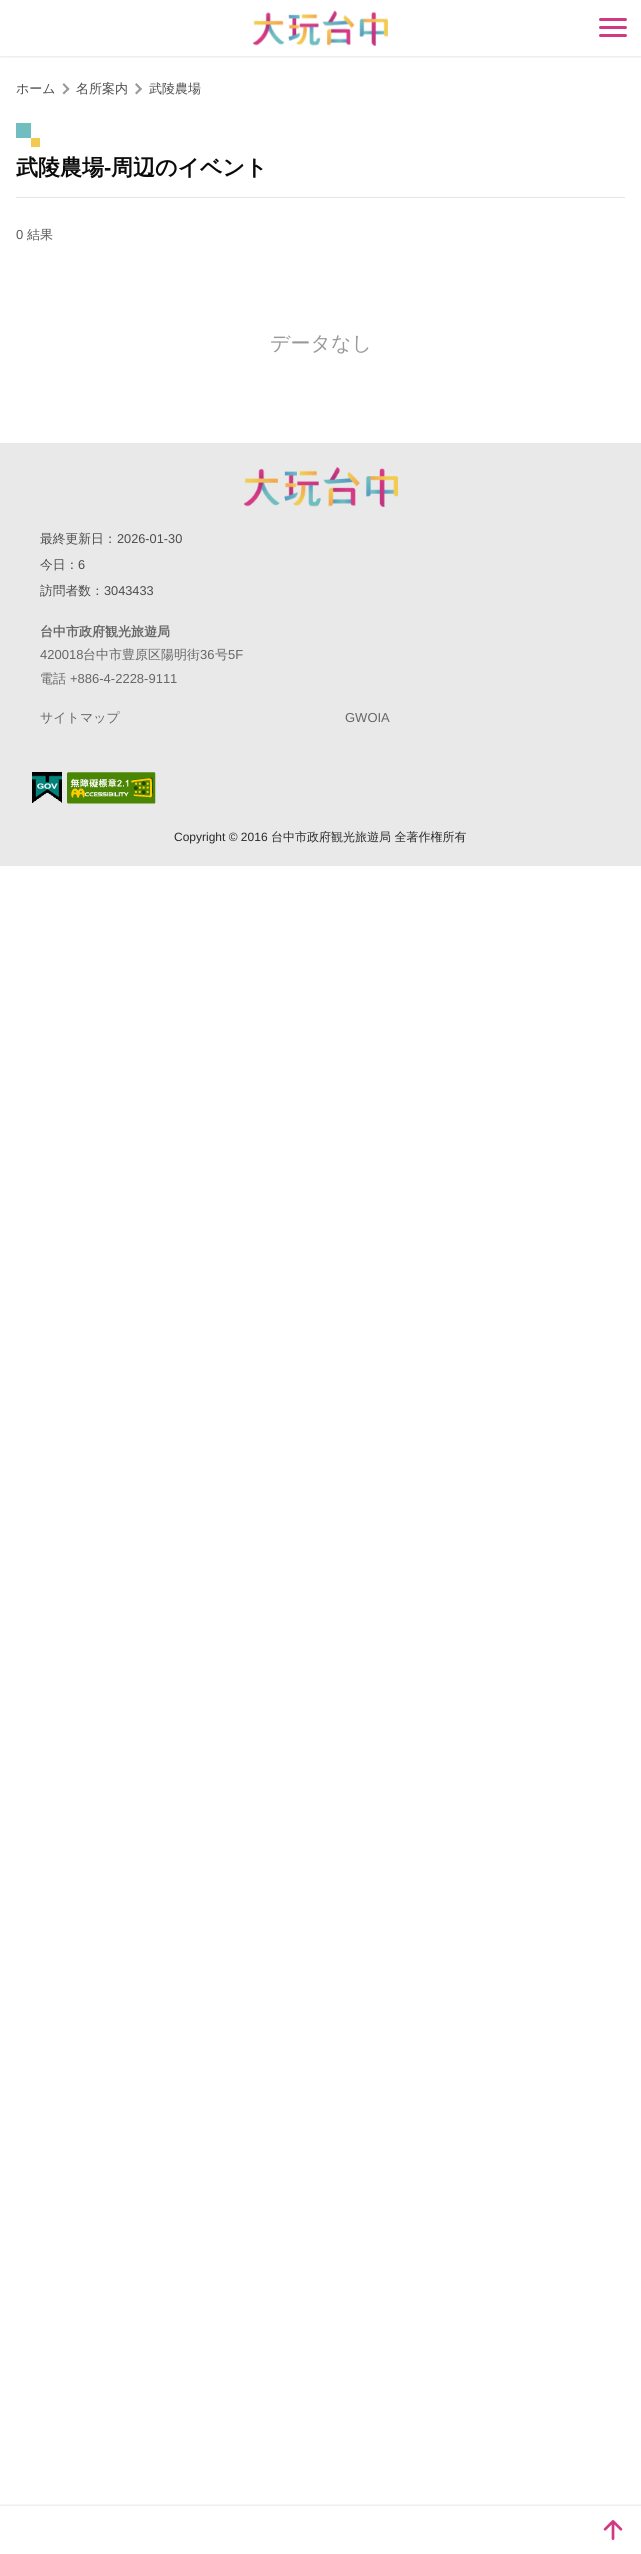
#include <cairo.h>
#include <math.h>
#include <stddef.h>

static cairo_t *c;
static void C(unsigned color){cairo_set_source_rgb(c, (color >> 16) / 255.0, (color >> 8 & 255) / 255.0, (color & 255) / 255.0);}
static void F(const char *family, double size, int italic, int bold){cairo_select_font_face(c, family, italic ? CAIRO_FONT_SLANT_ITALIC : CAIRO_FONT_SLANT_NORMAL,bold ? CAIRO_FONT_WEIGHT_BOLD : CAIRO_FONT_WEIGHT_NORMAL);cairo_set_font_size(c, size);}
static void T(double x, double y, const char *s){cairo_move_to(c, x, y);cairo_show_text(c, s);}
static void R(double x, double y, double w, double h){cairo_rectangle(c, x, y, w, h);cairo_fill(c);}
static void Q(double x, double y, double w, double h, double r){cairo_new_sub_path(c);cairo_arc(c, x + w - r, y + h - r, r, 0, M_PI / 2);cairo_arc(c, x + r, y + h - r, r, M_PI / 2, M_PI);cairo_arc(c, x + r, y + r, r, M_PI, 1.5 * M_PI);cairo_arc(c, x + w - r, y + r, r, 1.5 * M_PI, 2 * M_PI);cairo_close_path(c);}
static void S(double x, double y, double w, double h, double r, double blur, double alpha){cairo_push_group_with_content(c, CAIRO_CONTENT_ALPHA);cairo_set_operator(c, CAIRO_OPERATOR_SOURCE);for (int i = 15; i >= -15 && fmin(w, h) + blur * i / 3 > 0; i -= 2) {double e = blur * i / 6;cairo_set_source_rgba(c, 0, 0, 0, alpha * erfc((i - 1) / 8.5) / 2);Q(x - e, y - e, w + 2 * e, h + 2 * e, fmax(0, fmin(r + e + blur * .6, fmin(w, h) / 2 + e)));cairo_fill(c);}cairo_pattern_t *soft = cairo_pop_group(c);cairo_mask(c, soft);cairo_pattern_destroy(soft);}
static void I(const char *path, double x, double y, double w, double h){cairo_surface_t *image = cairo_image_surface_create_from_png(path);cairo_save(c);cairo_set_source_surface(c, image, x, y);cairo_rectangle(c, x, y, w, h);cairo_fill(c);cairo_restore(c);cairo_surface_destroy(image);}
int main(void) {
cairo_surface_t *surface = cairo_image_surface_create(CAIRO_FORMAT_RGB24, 641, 2554);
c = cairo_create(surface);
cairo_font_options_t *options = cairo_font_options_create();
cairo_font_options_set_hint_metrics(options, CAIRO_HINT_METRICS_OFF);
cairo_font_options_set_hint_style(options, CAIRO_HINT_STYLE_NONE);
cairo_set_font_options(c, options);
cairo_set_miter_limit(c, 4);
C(0xffffff);
cairo_paint(c);
cairo_save(c);
cairo_rectangle(c,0,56,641,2);
cairo_clip(c);
C(0x000000);
S(0,0,641,56,0,2,.16);
cairo_restore(c);
I("1.png",253,10,135,36);
C(0xd23982);
Q(599,18,28,3,1.5);
cairo_fill(c);
Q(599,26,28,3,1.5);
cairo_fill(c);
Q(599,34,28,3,1.5);
cairo_fill(c);
F("WenQuanYi Zen Hei Medium",13,0,0);
C(0x4c4c4c);
T(16,93,"ホーム");
C(0x999999);
cairo_new_path(c);
cairo_move_to(c,62.5,84.5);
cairo_line_to(c,64,83);
cairo_line_to(c,69.5,89);
cairo_line_to(c,68,90.5);
cairo_close_path(c);
cairo_fill(c);
cairo_new_path(c);
cairo_move_to(c,62.5,93);
cairo_line_to(c,68,87.5);
cairo_line_to(c,69.5,89);
cairo_line_to(c,64,94.5);
cairo_close_path(c);
cairo_fill(c);
C(0x4c4c4c);
T(76,93,"名所案内");
C(0x999999);
cairo_new_path(c);
cairo_move_to(c,135,84.5);
cairo_line_to(c,136.5,83);
cairo_line_to(c,142,89);
cairo_line_to(c,140.5,90.5);
cairo_close_path(c);
cairo_fill(c);
cairo_new_path(c);
cairo_move_to(c,135,93);
cairo_line_to(c,140.5,87.5);
cairo_line_to(c,142,89);
cairo_line_to(c,136.5,94.5);
cairo_close_path(c);
cairo_fill(c);
C(0x4c4c4c);
T(149,93,"武陵農場");
C(0xe6e6e6);
R(16,197,609,1);
C(0x70bebf);
R(16,123,15,15);
C(0xf2ca4f);
R(31,138,9,9);
F("WenQuanYi Zen Hei",22,0,1);
C(0x0a0a0a);
T(16,175,"武陵農場");
F("Liberation Sans",22,0,1);
T(104,175,"-");
F("WenQuanYi Zen Hei",22,0,1);
T(111,175,"周辺のイベント");
F("Liberation Sans",13,0,0);
C(0x595959);
T(16,239,"0");
F("WenQuanYi Zen Hei Medium",13,0,0);
T(27,239,"結果");
F("WenQuanYi Zen Hei Medium",20,0,0);
C(0x999999);
T(270,350,"データなし");
C(0xe9e9e9);
R(0,443,641,423);
I("2.png",244,467,154,40);
F("WenQuanYi Zen Hei Medium",12.75,0,0);
C(0x4c4c4c);
T(40,543,"最終更新日：");
F("Liberation Sans",12.75,0,0);
T(117,543,"2026-01-30");
F("WenQuanYi Zen Hei Medium",12.75,0,0);
T(40,569,"今日：");
F("Liberation Sans",12.75,0,0);
T(78,569,"6");
F("WenQuanYi Zen Hei Medium",12.75,0,0);
T(40,595,"訪問者数：");
F("Liberation Sans",12.75,0,0);
T(104,595,"3043433");
F("WenQuanYi Zen Hei",13,0,1);
C(0x666666);
T(40,636,"台中市政府観光旅遊局");
F("Liberation Sans",13,0,0);
T(40,659,"420018");
F("WenQuanYi Zen Hei Medium",13,0,0);
T(83,659,"台中市豊原区陽明街");
F("Liberation Sans",13,0,0);
T(200,659,"36");
F("WenQuanYi Zen Hei Medium",13,0,0);
T(215,659,"号");
F("Liberation Sans",13,0,0);
T(228,659,"5F");
F("WenQuanYi Zen Hei Medium",13,0,0);
T(40,683,"電話");
F("Liberation Sans",13,0,0);
T(70,683,"+886-4-2228-9111");
F("WenQuanYi Zen Hei Medium",13,0,0);
T(40,722,"サイトマップ");
F("Liberation Sans",13,0,0);
T(345,722,"GWOIA");
I("3.png",32,772,30,31);
I("4.png",67,772,89,32);
F("Liberation Sans",12,0,0);
C(0x2a2a2a);
T(174,841,"Copyright © 2016");
F("WenQuanYi Zen Hei Medium",12,0,0);
T(271,841,"台中市政府観光旅遊局 全著作権所有");
cairo_save(c);
cairo_rectangle(c,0,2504,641,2);
cairo_clip(c);
C(0x000000);
S(0,2506,641,48,0,2,.16);
cairo_restore(c);
I("5.png",603,2520,20,20);
cairo_surface_write_to_png(surface, "o.png");
cairo_font_options_destroy(options);
cairo_destroy(c);
cairo_surface_destroy(surface);
return 0;
}
